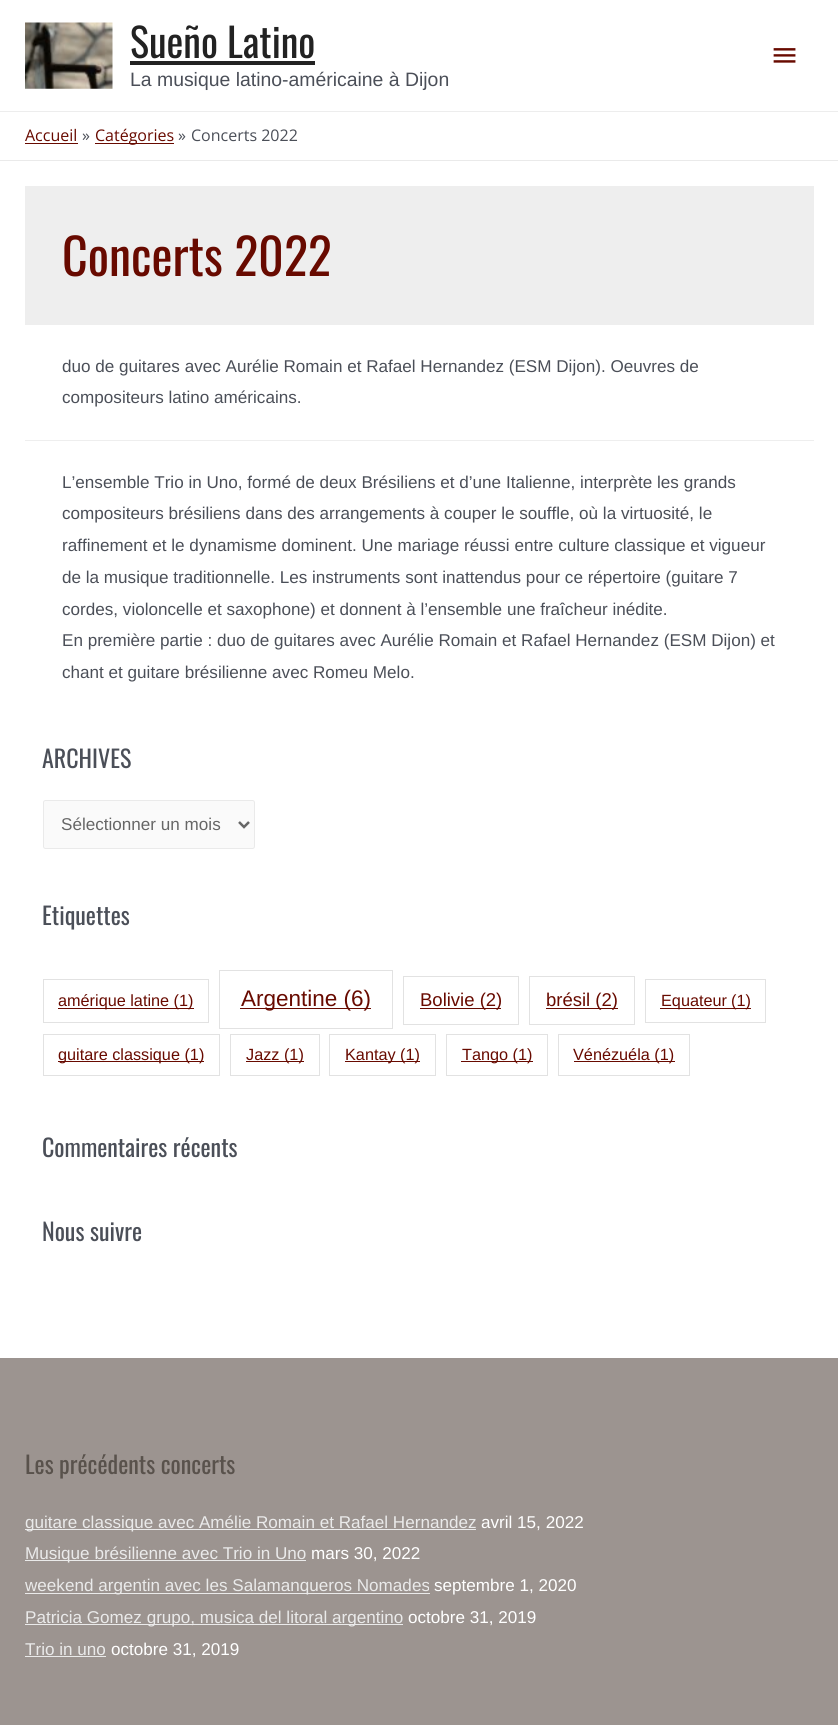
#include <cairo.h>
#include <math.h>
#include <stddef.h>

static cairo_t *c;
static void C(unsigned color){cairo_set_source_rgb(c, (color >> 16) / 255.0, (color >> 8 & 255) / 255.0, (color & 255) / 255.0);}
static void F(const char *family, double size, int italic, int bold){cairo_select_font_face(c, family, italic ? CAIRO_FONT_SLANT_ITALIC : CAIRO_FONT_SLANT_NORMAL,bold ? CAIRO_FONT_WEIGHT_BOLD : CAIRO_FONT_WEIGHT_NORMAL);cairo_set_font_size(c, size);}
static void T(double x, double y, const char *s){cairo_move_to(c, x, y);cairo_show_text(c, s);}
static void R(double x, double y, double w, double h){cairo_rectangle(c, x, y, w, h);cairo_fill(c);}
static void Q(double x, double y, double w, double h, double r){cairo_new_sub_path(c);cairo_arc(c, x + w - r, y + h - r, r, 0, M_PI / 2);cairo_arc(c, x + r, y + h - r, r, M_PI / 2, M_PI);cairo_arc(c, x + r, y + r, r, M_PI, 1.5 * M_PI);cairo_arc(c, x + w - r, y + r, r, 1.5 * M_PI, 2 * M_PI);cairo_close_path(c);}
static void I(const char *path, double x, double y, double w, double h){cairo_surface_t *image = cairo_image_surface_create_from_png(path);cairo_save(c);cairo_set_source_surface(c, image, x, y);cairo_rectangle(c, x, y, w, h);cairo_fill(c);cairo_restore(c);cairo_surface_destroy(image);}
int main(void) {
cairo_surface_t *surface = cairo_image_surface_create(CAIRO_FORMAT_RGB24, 838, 1725);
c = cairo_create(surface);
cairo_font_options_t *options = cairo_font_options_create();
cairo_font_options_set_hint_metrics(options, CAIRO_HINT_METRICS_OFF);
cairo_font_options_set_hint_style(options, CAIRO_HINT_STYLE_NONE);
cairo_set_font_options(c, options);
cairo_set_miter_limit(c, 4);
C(0xffffff);
cairo_paint(c);
C(0xededed);
R(0,111,838,1);
I("1.png",25,22,88,67);
F("Oswald",40,0,0);
C(0x222222);
T(130,58,"Sueño Latino");
R(130,61,185,4);
F("Liberation Sans",19.4,0,0);
C(0x4b4f58);
T(130,86,"La musique latino-américaine à Dijon");
I("2.png",773,48,23,15);
C(0xeaeaea);
R(0,160,838,1);
F("Open Sans",16,0,0);
C(0x680a00);
T(25,141,"Accueil");
R(25,143,53,1);
C(0x4b4f58);
T(82,141,"»");
C(0x680a00);
R(95,143,79,1);
T(95,141,"Catégories");
C(0x4b4f58);
T(178,141,"»");
T(191,141,"Concerts 2022");
C(0xeeeeee);
R(25,186,789,139);
F("Oswald",50,0,0);
C(0x680a00);
T(62,276,"Concerts 2022");
C(0xeeeeee);
R(25,440,789,1);
F("Liberation Sans",17.1,0,0);
C(0x4b4f58);
T(62,372,"duo de guitares avec Aurélie Romain et Rafael Hernandez (ESM Dijon). Oeuvres de");
T(62,403,"compositeurs latino américains.");
T(62,488,"L’ensemble Trio in Uno, formé de deux Brésiliens et d’une Italienne, interprète les grands");
T(62,519,"compositeurs brésiliens dans des arrangements à couper le souffle, où la virtuosité, le");
T(62,551,"raffinement et le dynamisme dominent. Une mariage réussi entre culture classique et vigueur");
T(62,583,"de la musique traditionnelle. Les instruments sont inattendus pour ce répertoire (guitare 7");
T(62,615,"cordes, violoncelle et saxophone) et donnent à l’ensemble une fraîcheur inédite.");
T(62,646,"En première partie : duo de guitares avec Aurélie Romain et Rafael Hernandez (ESM Dijon) et");
T(62,678,"chant et guitare brésilienne avec Romeu Melo.");
F("Oswald",24,0,0);
T(42,768,"ARCHIVES");
C(0xfafafa);
Q(43.5,800.5,211,48,2);
cairo_fill_preserve(c);
C(0xeaeaea);
cairo_set_line_width(c,1);
cairo_stroke(c);
cairo_new_path(c);
cairo_move_to(c,239,822);
cairo_line_to(c,244,827);
cairo_line_to(c,249,822);
C(0x666666);
cairo_set_line_width(c,2.5);
cairo_stroke(c);
F("Liberation Sans",17.1,0,0);
T(61,830,"Sélectionner un mois");
F("Oswald",24,0,0);
C(0x4b4f58);
T(42,925,"Etiquettes");
cairo_rectangle(c,43.5,979.5,165,43);
C(0xe2e2e2);
cairo_set_line_width(c,1);
cairo_stroke(c);
C(0x680a00);
R(58,1008,136,1);
F("Liberation Sans",16.25,0,0);
T(58,1006,"amérique latine (1)");
cairo_rectangle(c,219.5,970.5,173,58);
C(0xe2e2e2);
cairo_stroke(c);
C(0x680a00);
R(240,1008,131,1);
F("Liberation Sans",22.5,0,0);
T(241,1006,"Argentine (6)");
cairo_rectangle(c,403.5,976.5,115,48);
C(0xe2e2e2);
cairo_stroke(c);
C(0x680a00);
R(420,1008,81,1);
F("Liberation Sans",18.5,0,0);
T(420,1006,"Bolivie (2)");
cairo_rectangle(c,529.5,976.5,105,48);
C(0xe2e2e2);
cairo_stroke(c);
C(0x680a00);
R(546,1008,72,1);
T(546,1006,"brésil (2)");
cairo_rectangle(c,645.5,979.5,120,43);
C(0xe2e2e2);
cairo_stroke(c);
C(0x680a00);
R(660,1008,66,1);
F("Liberation Sans",16.25,0,0);
T(661,1006,"Equateur");
R(726,1008,25,1);
T(731,1006,"(1)");
cairo_rectangle(c,43.5,1034.5,176,41);
C(0xe2e2e2);
cairo_stroke(c);
C(0x680a00);
R(58,1061,146,1);
T(58,1060,"guitare classique (1)");
cairo_rectangle(c,230.5,1034.5,89,41);
C(0xe2e2e2);
cairo_stroke(c);
C(0x680a00);
R(246,1061,58,1);
T(246,1060,"Jazz (1)");
cairo_rectangle(c,329.5,1034.5,106,41);
C(0xe2e2e2);
cairo_stroke(c);
C(0x680a00);
R(345,1061,75,1);
T(345,1060,"Kantay (1)");
cairo_rectangle(c,446.5,1034.5,101,41);
C(0xe2e2e2);
cairo_stroke(c);
C(0x680a00);
R(461,1061,72,1);
T(462,1060,"Tango (1)");
cairo_rectangle(c,558.5,1034.5,131,41);
C(0xe2e2e2);
cairo_stroke(c);
C(0x680a00);
R(574,1061,101,1);
T(573,1060,"Vénézuéla (1)");
F("Oswald",24,0,0);
C(0x4b4f58);
T(42,1157,"Commentaires récents");
T(42,1241,"Nous suivre");
C(0x9c9490);
R(0,1358,838,367);
C(0x59524c);
T(25,1474,"Les précédents concerts");
C(0xeaeaea);
R(25,1529,451,1);
F("Liberation Sans",17.1,0,0);
T(25,1528,"guitare classique avec Amélie Romain et Rafael Hernandez");
C(0xffffff);
T(481,1528,"avril 15, 2022");
C(0xeaeaea);
R(25,1560,281,1);
T(25,1559,"Musique brésilienne avec Trio in Uno");
C(0xffffff);
T(311,1559,"mars 30, 2022");
C(0xeaeaea);
R(25,1593,405,1);
T(25,1591,"weekend argentin avec les Salamanqueros Nomades");
C(0xffffff);
T(434,1591,"septembre 1, 2020");
C(0xeaeaea);
R(25,1624,378,1);
T(25,1623,"Patricia Gomez grupo, musica del litoral argentino");
C(0xffffff);
T(408,1623,"octobre 31, 2019");
C(0xeaeaea);
T(25,1655,"Trio in uno");
R(25,1656,81,1);
C(0xffffff);
T(111,1655,"octobre 31, 2019");
cairo_surface_write_to_png(surface, "o.png");
cairo_font_options_destroy(options);
cairo_destroy(c);
cairo_surface_destroy(surface);
return 0;
}
